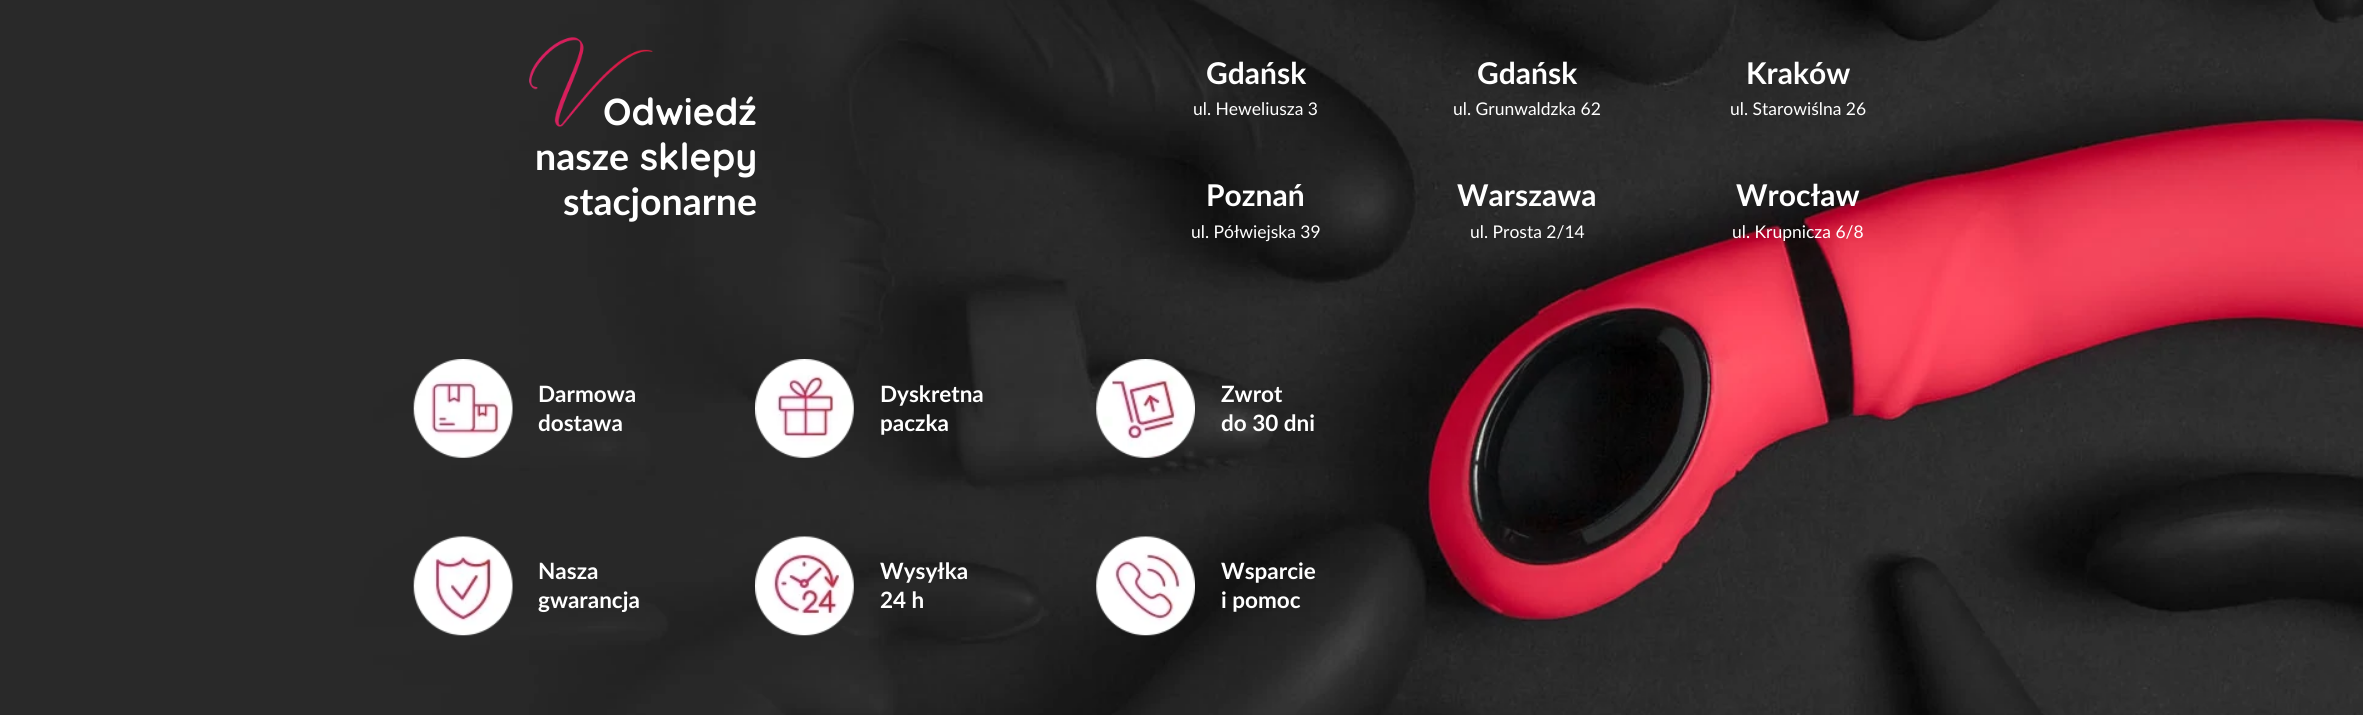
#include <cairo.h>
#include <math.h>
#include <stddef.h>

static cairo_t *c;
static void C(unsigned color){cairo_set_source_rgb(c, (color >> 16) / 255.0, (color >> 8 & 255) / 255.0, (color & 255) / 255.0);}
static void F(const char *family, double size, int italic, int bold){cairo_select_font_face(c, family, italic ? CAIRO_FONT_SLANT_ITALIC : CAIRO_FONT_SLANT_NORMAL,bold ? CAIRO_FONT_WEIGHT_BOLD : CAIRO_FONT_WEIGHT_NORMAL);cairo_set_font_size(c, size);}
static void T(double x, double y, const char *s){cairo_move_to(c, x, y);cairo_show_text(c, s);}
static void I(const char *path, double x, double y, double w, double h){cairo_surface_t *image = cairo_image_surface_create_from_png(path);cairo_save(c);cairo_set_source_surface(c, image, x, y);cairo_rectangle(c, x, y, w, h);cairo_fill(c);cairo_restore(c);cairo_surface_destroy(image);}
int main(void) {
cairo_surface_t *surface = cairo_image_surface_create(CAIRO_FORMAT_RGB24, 2363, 715);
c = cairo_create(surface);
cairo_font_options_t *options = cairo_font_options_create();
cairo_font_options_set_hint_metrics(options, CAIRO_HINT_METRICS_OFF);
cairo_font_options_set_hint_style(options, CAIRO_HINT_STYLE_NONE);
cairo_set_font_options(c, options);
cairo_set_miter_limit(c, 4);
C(0xffffff);
cairo_paint(c);
I("1.png",0,0,2363,715);
I("2.png",529,37,124,90);
F("Quicksand",37.5,0,1);
C(0xffffff);
T(603,125,"Odwiedź");
F("Lato",37.5,0,1);
T(535,170,"nasze");
F("Quicksand",37.5,0,1);
T(640,170,"sklepy");
F("Lato",37.5,0,1);
T(563,215,"stacjonarne");
F("Lato",30,0,1);
T(1206,84,"Gdańsk");
F("Lato",17.5,0,0);
T(1193,115,"ul. Heweliusza 3");
F("Lato",30,0,1);
T(1477,84,"Gdańsk");
F("Lato",17.5,0,0);
T(1453,115,"ul. Grunwaldzka 62");
F("Lato",30,0,1);
T(1746,84,"Kraków");
F("Lato",17.5,0,0);
T(1730,115,"ul. Starowiślna 26");
F("Lato",30,0,1);
T(1206,206,"Poznań");
F("Lato",17.5,0,0);
T(1191,238,"ul. Półwiejska 39");
F("Lato",30,0,1);
T(1457,206,"Warszawa");
F("Lato",17.5,0,0);
T(1470,238,"ul. Prosta 2/14");
F("Lato",30,0,1);
T(1736,206,"Wrocław");
F("Lato",17.5,0,0);
T(1732,238,"ul. Krupnicza 6/8");
I("3.png",413,359,100,99);
F("Lato",22.5,0,1);
T(538,402,"Darmowa");
T(538,431,"dostawa");
I("4.png",755,359,99,99);
T(880,402,"Dyskretna");
T(880,431,"paczka");
I("5.png",1096,359,99,99);
T(1221,402,"Zwrot");
T(1221,431,"do 30 dni");
I("6.png",413,536,100,100);
T(538,579,"Nasza");
T(538,608,"gwarancja");
I("7.png",755,536,99,100);
T(880,579,"Wysyłka");
T(880,608,"24 h");
I("8.png",1096,536,99,100);
T(1221,579,"Wsparcie");
T(1221,608,"i pomoc");
cairo_surface_write_to_png(surface, "o.png");
cairo_font_options_destroy(options);
cairo_destroy(c);
cairo_surface_destroy(surface);
return 0;
}
